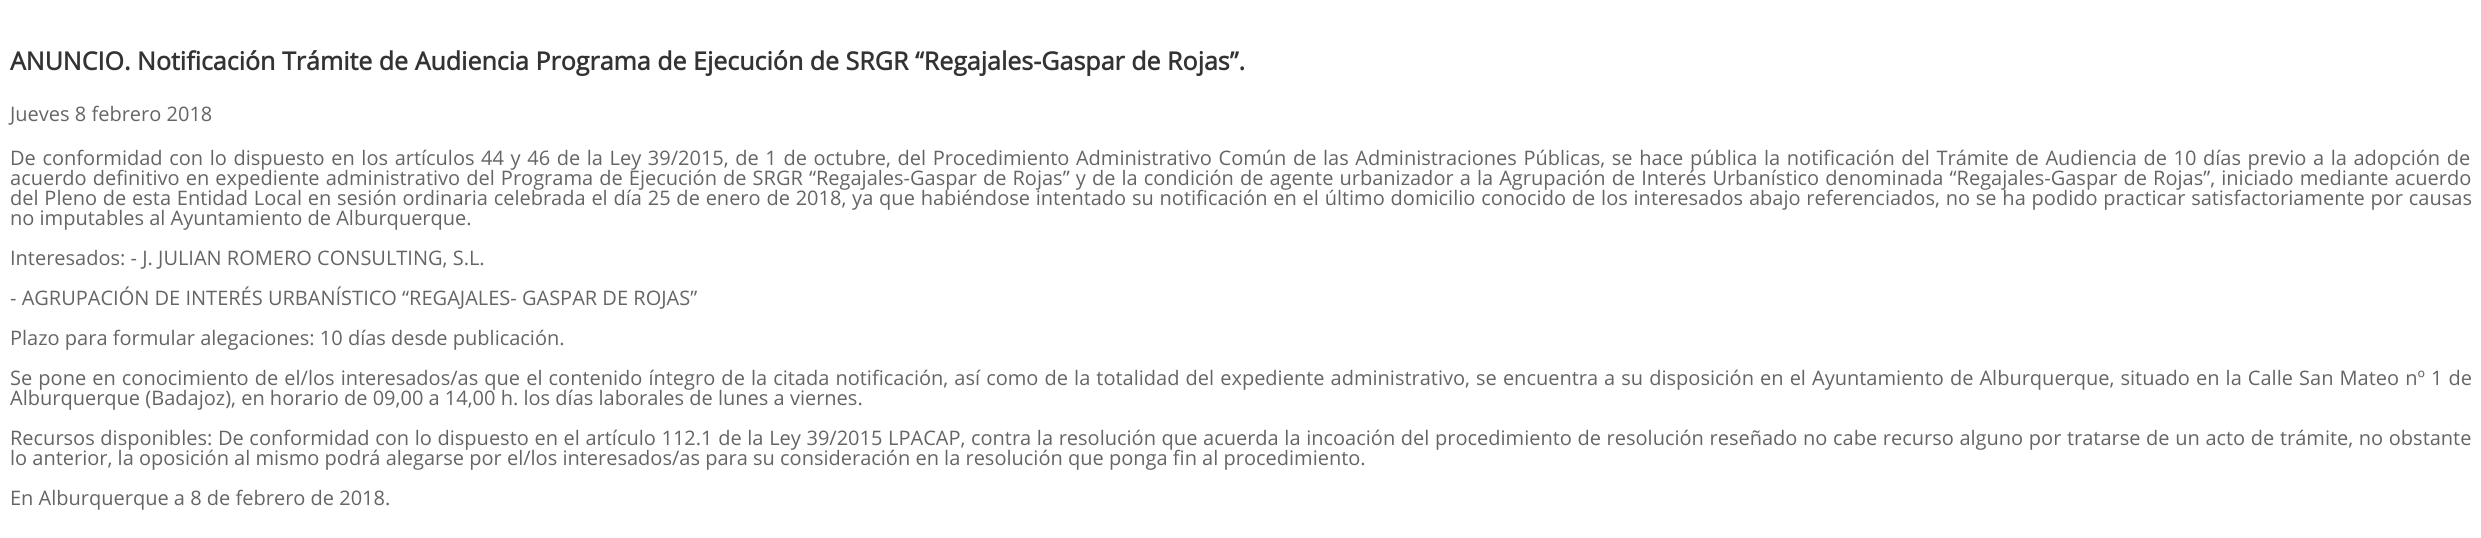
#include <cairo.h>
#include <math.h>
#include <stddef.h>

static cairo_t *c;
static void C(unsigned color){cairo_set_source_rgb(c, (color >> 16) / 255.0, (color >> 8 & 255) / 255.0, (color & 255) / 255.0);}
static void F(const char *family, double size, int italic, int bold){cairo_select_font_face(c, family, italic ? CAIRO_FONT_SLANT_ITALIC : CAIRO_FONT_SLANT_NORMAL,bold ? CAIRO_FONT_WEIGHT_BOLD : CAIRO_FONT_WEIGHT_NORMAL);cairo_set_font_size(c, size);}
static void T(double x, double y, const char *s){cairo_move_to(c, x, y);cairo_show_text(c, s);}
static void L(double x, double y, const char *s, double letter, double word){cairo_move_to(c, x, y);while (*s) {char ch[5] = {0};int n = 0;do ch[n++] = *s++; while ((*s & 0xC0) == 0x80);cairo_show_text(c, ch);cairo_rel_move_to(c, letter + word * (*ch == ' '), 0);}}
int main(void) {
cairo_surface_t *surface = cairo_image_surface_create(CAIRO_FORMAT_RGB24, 2481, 538);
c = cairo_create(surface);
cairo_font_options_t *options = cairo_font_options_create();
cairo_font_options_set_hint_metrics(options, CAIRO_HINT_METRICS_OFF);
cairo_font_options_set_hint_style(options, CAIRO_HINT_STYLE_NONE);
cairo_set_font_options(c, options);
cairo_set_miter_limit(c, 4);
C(0xffffff);
cairo_paint(c);
F("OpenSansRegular",25,0,1);
C(0x333333);
T(10,70,"ANUNCIO. Notificación Trámite de Audiencia Programa de Ejecución de SRGR “Regajales-Gaspar de Rojas”.");
F("OpenSansRegular",20,0,0);
C(0x656565);
T(10,121,"Jueves 8 febrero 2018");
L(10,165,"De conformidad con lo dispuesto en los artículos 44 y 46 de la Ley 39/2015, de 1 de octubre, del Procedimiento Administrativo Común de las Administraciones Públicas, se hace pública la notificación del Trámite de Audiencia de 10 días previo a la adopción de",0,1.4);
L(10,185,"acuerdo definitivo en expediente administrativo del Programa de Ejecución de SRGR “Regajales-Gaspar de Rojas” y de la condición de agente urbanizador a la Agrupación de Interés Urbanístico denominada “Regajales-Gaspar de Rojas”, iniciado mediante acuerdo",0,.9);
L(10,205,"del Pleno de esta Entidad Local en sesión ordinaria celebrada el día 25 de enero de 2018, ya que habiéndose intentado su notificación en el último domicilio conocido de los interesados abajo referenciados, no se ha podido practicar satisfactoriamente por causas",0,.6);
T(10,225,"no imputables al Ayuntamiento de Alburquerque.");
T(10,265,"Interesados: - J. JULIAN ROMERO CONSULTING, S.L.");
T(10,305,"- AGRUPACIÓN DE INTERÉS URBANÍSTICO “REGAJALES- GASPAR DE ROJAS”");
T(10,345,"Plazo para formular alegaciones: 10 días desde publicación.");
L(10,385,"Se pone en conocimiento de el/los interesados/as que el contenido íntegro de la citada notificación, así como de la totalidad del expediente administrativo, se encuentra a su disposición en el Ayuntamiento de Alburquerque, situado en la Calle San Mateo nº 1 de",0,.9);
T(10,405,"Alburquerque (Badajoz), en horario de 09,00 a 14,00 h. los días laborales de lunes a viernes.");
L(10,445,"Recursos disponibles: De conformidad con lo dispuesto en el artículo 112.1 de la Ley 39/2015 LPACAP, contra la resolución que acuerda la incoación del procedimiento de resolución reseñado no cabe recurso alguno por tratarse de un acto de trámite, no obstante",0,.45);
T(10,465,"lo anterior, la oposición al mismo podrá alegarse por el/los interesados/as para su consideración en la resolución que ponga fin al procedimiento.");
T(10,505,"En Alburquerque a 8 de febrero de 2018.");
cairo_surface_write_to_png(surface, "o.png");
cairo_font_options_destroy(options);
cairo_destroy(c);
cairo_surface_destroy(surface);
return 0;
}
